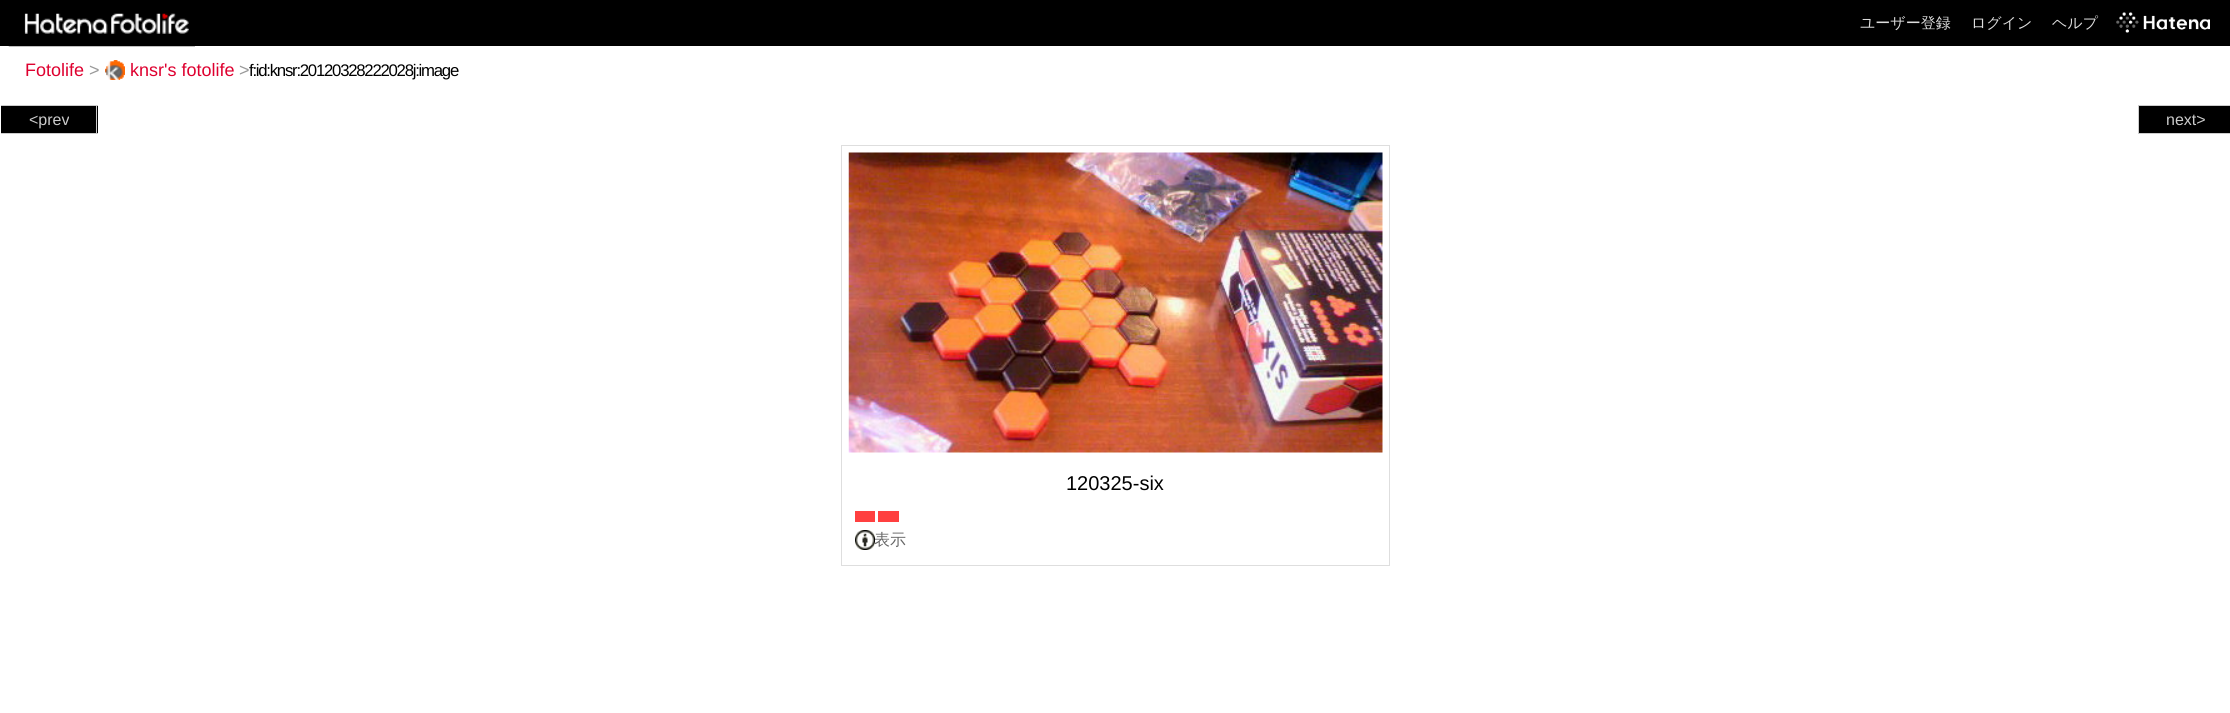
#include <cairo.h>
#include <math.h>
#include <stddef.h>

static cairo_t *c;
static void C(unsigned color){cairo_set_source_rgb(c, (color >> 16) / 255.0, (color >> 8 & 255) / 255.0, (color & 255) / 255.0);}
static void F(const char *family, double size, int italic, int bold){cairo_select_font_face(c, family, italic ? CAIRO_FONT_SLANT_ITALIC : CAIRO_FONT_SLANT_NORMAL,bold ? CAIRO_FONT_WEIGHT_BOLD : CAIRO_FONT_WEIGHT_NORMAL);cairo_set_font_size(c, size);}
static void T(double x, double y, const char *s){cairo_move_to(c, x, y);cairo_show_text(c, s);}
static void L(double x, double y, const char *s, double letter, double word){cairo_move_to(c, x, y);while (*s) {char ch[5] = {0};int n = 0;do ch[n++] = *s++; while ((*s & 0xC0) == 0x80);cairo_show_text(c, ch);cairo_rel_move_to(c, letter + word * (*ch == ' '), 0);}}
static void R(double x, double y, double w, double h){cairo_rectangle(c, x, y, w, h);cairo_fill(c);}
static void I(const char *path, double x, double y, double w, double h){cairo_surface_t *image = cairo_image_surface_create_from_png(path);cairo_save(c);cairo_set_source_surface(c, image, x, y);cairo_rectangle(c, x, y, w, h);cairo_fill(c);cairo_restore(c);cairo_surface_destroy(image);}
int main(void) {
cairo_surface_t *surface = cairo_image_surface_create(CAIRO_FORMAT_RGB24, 2230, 713);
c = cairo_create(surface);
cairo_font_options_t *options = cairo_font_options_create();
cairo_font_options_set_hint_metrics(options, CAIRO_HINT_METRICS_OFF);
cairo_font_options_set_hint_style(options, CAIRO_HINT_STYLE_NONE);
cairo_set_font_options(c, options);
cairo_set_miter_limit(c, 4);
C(0xffffff);
cairo_paint(c);
C(0x000000);
R(0,0,2230,46);
I("1.png",8,13,104,34);
I("2.png",111,13,84,34);
F("WenQuanYi Zen Hei Medium",15,0,0);
C(0xdddddd);
T(1860,28,"ユーザー登録");
T(1971,28,"ログイン");
T(2052,28,"ヘルプ");
I("3.png",2116,12,94,21);
F("Liberation Sans",18,0,0);
C(0xde002f);
T(25,76,"Fotolife");
C(0x999999);
T(89,76,">");
I("4.png",105,60,20,20);
C(0xde002f);
T(130,76,"knsr's fotolife");
C(0x999999);
T(239,76,">");
F("Liberation Sans",16.75,0,0);
C(0x000000);
L(249,76,"f:id:knsr:20120328222028j:image",-1.25,0);
R(1,106,97,27);
C(0xcccccc);
R(1,105,97,1);
R(96,105,1,29);
R(1,133,97,1);
F("Liberation Sans",16,0,0);
T(29,125,"<prev");
C(0x000000);
R(2139,106,91,27);
C(0xcccccc);
R(2138,105,92,1);
R(2138,133,92,1);
R(2138,105,1,29);
T(2166,125,"next>");
cairo_rectangle(c,841.5,145.5,548,420);
C(0xdedede);
cairo_set_line_width(c,1);
cairo_stroke(c);
I("5.png",848,152,535,301);
F("Liberation Sans",20,0,0);
C(0x000000);
T(1066,490,"120325-six");
C(0xff4040);
R(855,511,20,11);
R(878,511,21,11);
I("6.png",855,530,20,20);
F("WenQuanYi Zen Hei Medium",16,0,0);
C(0x666666);
T(874,545,"表示");
cairo_surface_write_to_png(surface, "o.png");
cairo_font_options_destroy(options);
cairo_destroy(c);
cairo_surface_destroy(surface);
return 0;
}
